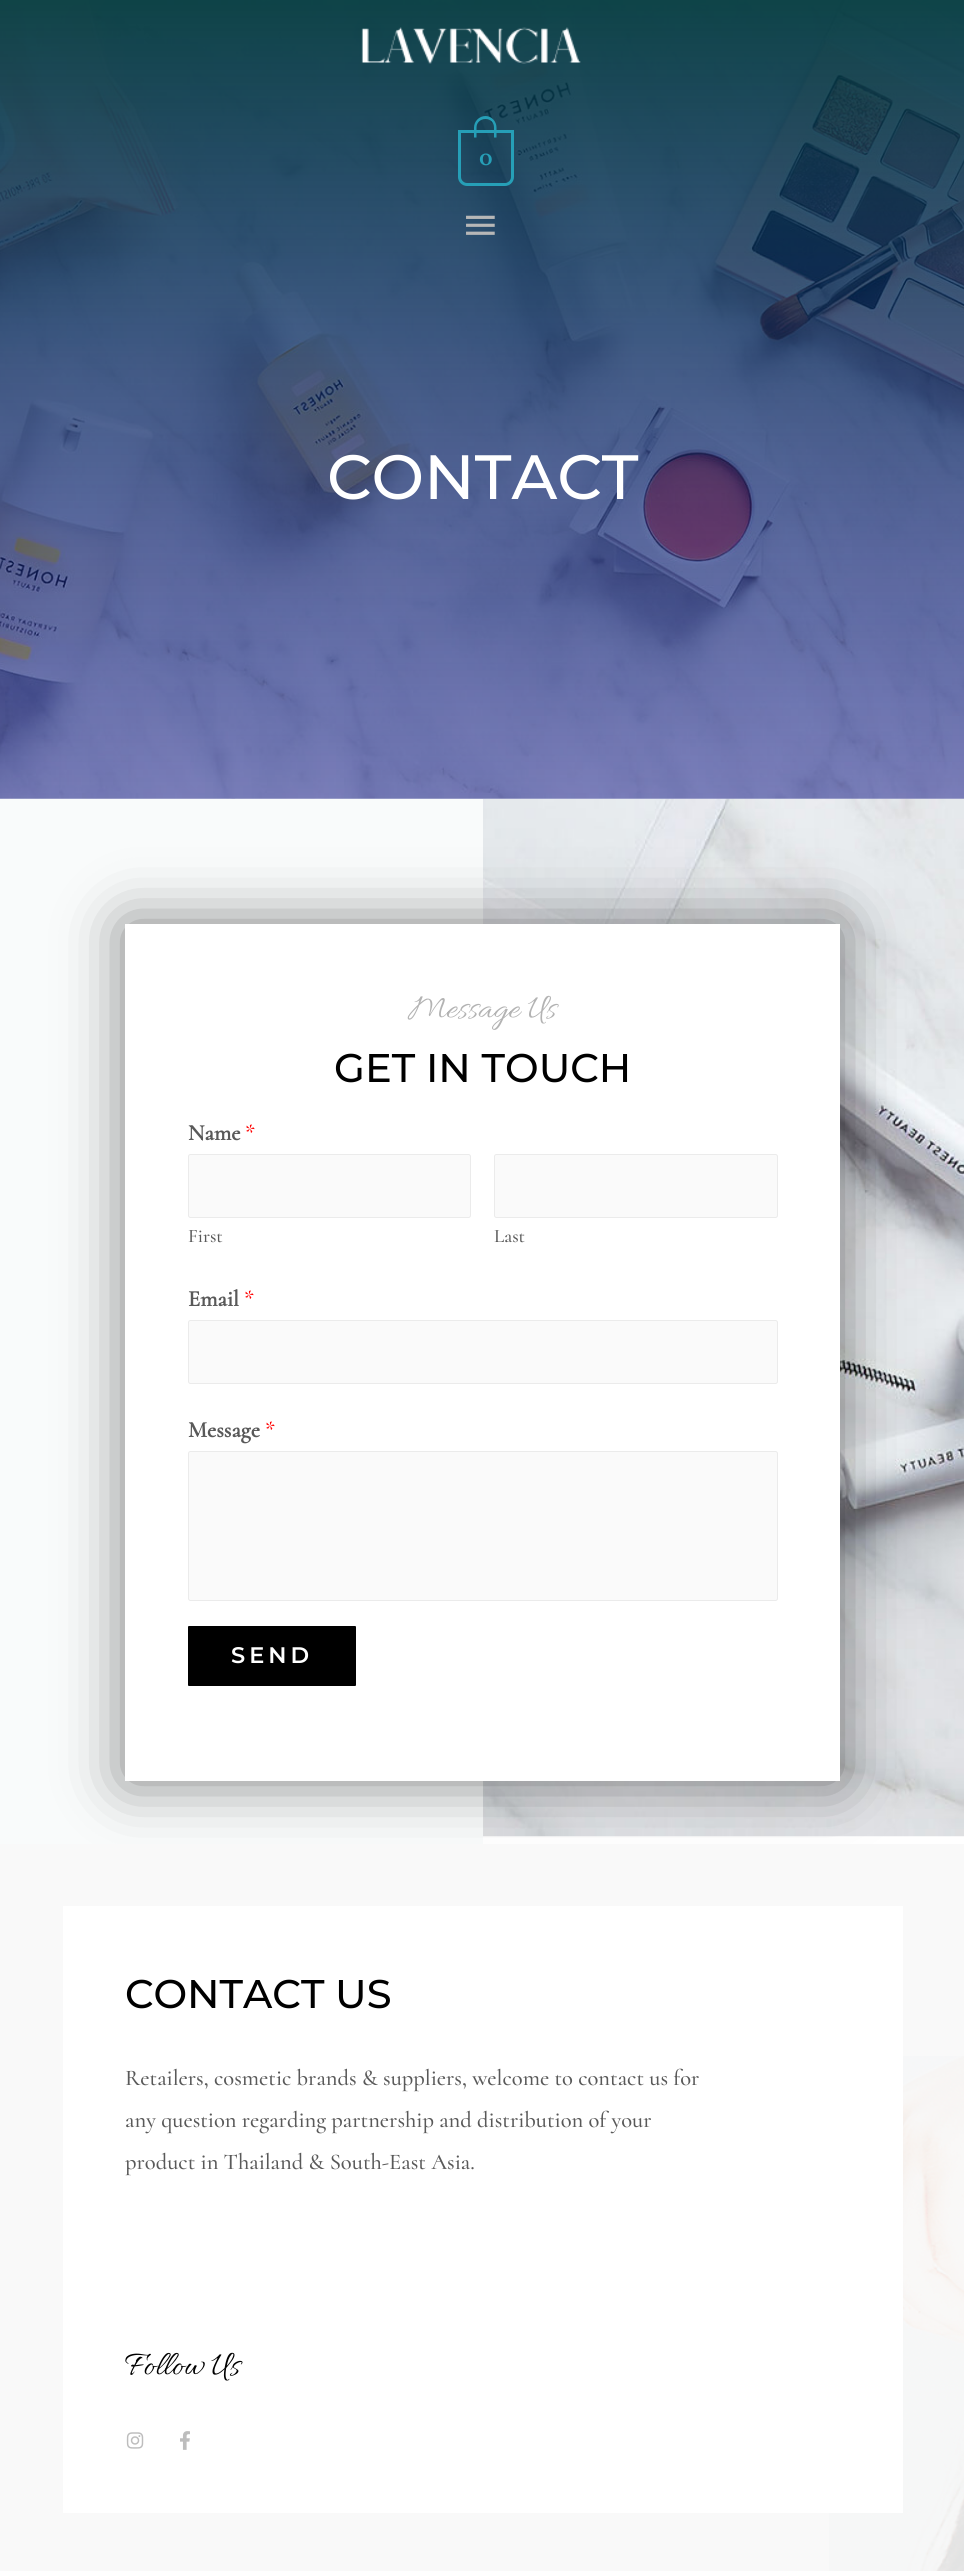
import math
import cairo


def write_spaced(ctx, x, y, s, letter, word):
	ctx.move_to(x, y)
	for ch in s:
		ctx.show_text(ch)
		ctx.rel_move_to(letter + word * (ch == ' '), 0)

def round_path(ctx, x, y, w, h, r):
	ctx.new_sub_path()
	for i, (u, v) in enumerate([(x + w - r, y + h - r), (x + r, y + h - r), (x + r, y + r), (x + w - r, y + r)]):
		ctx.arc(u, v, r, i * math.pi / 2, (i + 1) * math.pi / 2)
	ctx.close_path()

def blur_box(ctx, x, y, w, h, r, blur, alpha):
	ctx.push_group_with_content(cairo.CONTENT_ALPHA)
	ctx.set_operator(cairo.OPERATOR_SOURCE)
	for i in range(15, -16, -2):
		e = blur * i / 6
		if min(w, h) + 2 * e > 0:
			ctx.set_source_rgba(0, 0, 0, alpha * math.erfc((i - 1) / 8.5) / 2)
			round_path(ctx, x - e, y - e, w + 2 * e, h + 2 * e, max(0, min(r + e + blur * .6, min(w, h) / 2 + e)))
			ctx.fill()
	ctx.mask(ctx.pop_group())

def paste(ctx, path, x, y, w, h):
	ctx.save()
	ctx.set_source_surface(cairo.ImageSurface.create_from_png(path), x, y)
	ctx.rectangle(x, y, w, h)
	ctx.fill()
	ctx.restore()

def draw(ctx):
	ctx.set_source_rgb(1, 1, 1)
	ctx.paint()
	paste(ctx, 'media/3.png', 0, 0, 964, 799)
	gradient = cairo.LinearGradient(483, 799, 483, 0)
	gradient.add_color_stop_rgba(0, 0.027, 0.051, 0.529, 0.47)
	gradient.add_color_stop_rgba(1, 0.012, 0.231, 0.247, 0.95)
	ctx.set_source(gradient)
	ctx.rectangle(0, 0, 964, 799)
	ctx.fill()
	paste(ctx, 'media/1.png', 361, 27, 220, 37)
	ctx.new_path()
	ctx.move_to(459.5, 131.5)
	ctx.line_to(512.5, 131.5)
	ctx.line_to(512.5, 177)
	ctx.curve_to(512.5, 181, 509, 184.5, 505, 184.5)
	ctx.line_to(467, 184.5)
	ctx.curve_to(463, 184.5, 459.5, 181, 459.5, 177)
	ctx.close_path()
	ctx.set_source_rgb(0.149, 0.624, 0.718)
	ctx.set_line_width(3)
	ctx.stroke()
	ctx.set_fill_rule(cairo.FILL_RULE_EVEN_ODD)
	ctx.new_path()
	ctx.move_to(485.5, 116)
	ctx.curve_to(491.5, 116, 496.5, 121.5, 496.5, 127.5)
	ctx.line_to(496.5, 137.5)
	ctx.line_to(474, 137.5)
	ctx.line_to(474, 127.5)
	ctx.curve_to(474, 121.5, 479, 116, 485.5, 116)
	ctx.close_path()
	ctx.move_to(485.5, 119)
	ctx.curve_to(490.5, 119, 494, 122.5, 494, 127.5)
	ctx.line_to(494, 137.5)
	ctx.line_to(476.5, 137.5)
	ctx.line_to(476.5, 127.5)
	ctx.curve_to(476.5, 122.5, 480.5, 119, 485.5, 119)
	ctx.close_path()
	ctx.fill()
	ctx.select_font_face('Cormorant', cairo.FONT_SLANT_NORMAL, cairo.FONT_WEIGHT_BOLD)
	ctx.set_font_size(27)
	ctx.move_to(479, 165)
	ctx.show_text('0')
	paste(ctx, 'media/2.png', 466, 215, 29, 20)
	ctx.select_font_face('Montserrat Medium')
	ctx.set_font_size(62.5)
	ctx.set_source_rgb(1, 1, 1)
	ctx.move_to(327, 499)
	ctx.show_text('CONTACT')
	paste(ctx, 'media/4.png', 0, 798, 964, 1039)
	ctx.set_source_rgb(0.973, 0.984, 0.984)
	ctx.rectangle(0, 799, 483, 1045)
	ctx.fill()
	ctx.set_source_rgb(0, 0, 0)
	blur_box(ctx, 125, 924, 715, 857, 0, 31, 0.5)
	ctx.set_source_rgb(1, 1, 1)
	ctx.rectangle(125, 924, 715, 857)
	ctx.fill()
	ctx.select_font_face('Allura')
	ctx.set_font_size(35)
	ctx.set_source_rgb(0.702, 0.702, 0.702)
	ctx.move_to(408, 1017)
	ctx.show_text('Message Us')
	ctx.select_font_face('Montserrat Medium')
	ctx.set_font_size(40)
	ctx.set_source_rgb(0, 0, 0)
	ctx.move_to(334, 1082)
	ctx.show_text('GET IN TOUCH')
	ctx.select_font_face('Cormorant', cairo.FONT_SLANT_NORMAL, cairo.FONT_WEIGHT_BOLD)
	ctx.set_font_size(22.5)
	ctx.set_source_rgb(0.349, 0.349, 0.349)
	ctx.move_to(188, 1140)
	ctx.show_text('Name')
	ctx.select_font_face('Cormorant Light')
	ctx.set_source_rgb(1, 0, 0)
	ctx.move_to(245, 1140)
	ctx.show_text('*')
	ctx.set_source_rgb(0.98, 0.98, 0.98)
	round_path(ctx, 188.5, 1154.5, 282, 63, 2)
	ctx.fill_preserve()
	ctx.set_source_rgb(0.918, 0.918, 0.918)
	ctx.set_line_width(1)
	ctx.stroke()
	ctx.set_font_size(19)
	ctx.set_source_rgb(0.349, 0.349, 0.349)
	ctx.move_to(188, 1242)
	ctx.show_text('First')
	ctx.set_source_rgb(0.98, 0.98, 0.98)
	round_path(ctx, 494.5, 1154.5, 283, 63, 2)
	ctx.fill_preserve()
	ctx.set_source_rgb(0.918, 0.918, 0.918)
	ctx.stroke()
	ctx.set_source_rgb(0.349, 0.349, 0.349)
	ctx.move_to(494, 1242)
	ctx.show_text('Last')
	ctx.select_font_face('Cormorant', cairo.FONT_SLANT_NORMAL, cairo.FONT_WEIGHT_BOLD)
	ctx.set_font_size(22.5)
	ctx.move_to(188, 1306)
	ctx.show_text('Email')
	ctx.select_font_face('Cormorant Light')
	ctx.set_source_rgb(1, 0, 0)
	ctx.move_to(244, 1306)
	ctx.show_text('*')
	ctx.set_source_rgb(0.98, 0.98, 0.98)
	round_path(ctx, 188.5, 1320.5, 589, 63, 2)
	ctx.fill_preserve()
	ctx.set_source_rgb(0.918, 0.918, 0.918)
	ctx.stroke()
	ctx.select_font_face('Cormorant', cairo.FONT_SLANT_NORMAL, cairo.FONT_WEIGHT_BOLD)
	ctx.set_source_rgb(0.349, 0.349, 0.349)
	ctx.move_to(188, 1437)
	ctx.show_text('Message')
	ctx.select_font_face('Cormorant Light')
	ctx.set_source_rgb(1, 0, 0)
	ctx.move_to(265, 1437)
	ctx.show_text('*')
	ctx.set_source_rgb(0.98, 0.98, 0.98)
	round_path(ctx, 188.5, 1451.5, 589, 149, 2)
	ctx.fill_preserve()
	ctx.set_source_rgb(0.918, 0.918, 0.918)
	ctx.stroke()
	ctx.set_source_rgb(0, 0, 0)
	round_path(ctx, 188, 1626, 168, 60, 1)
	ctx.fill()
	ctx.select_font_face('Montserrat SemiBold')
	ctx.set_source_rgb(1, 1, 1)
	write_spaced(ctx, 231, 1663, 'SEND', 4, 0)
	ctx.set_source_rgb(0.973, 0.973, 0.973)
	ctx.rectangle(0, 1844, 964, 727)
	ctx.fill()
	paste(ctx, 'media/7.png', 829, 2056, 135, 515)
	ctx.set_source_rgb(1, 1, 1)
	ctx.rectangle(63, 1906, 840, 607)
	ctx.fill()
	ctx.select_font_face('Montserrat Medium')
	ctx.set_font_size(40)
	ctx.set_source_rgb(0, 0, 0)
	ctx.move_to(125, 2008)
	ctx.show_text('CONTACT US')
	ctx.select_font_face('Cormorant Light')
	ctx.set_font_size(22.5)
	ctx.set_source_rgb(0.349, 0.349, 0.349)
	for x, y, s in [
		(125, 2085, 'Retailers, cosmetic brands & suppliers, welcome to contact us for'),
		(125, 2127, 'any question regarding partnership and distribution of your'),
		(125, 2169, 'product in Thailand & South-East Asia.'),
	]:
		ctx.move_to(x, y)
		ctx.show_text(s)
	ctx.select_font_face('Allura')
	ctx.set_font_size(35)
	ctx.set_source_rgb(0, 0, 0)
	ctx.move_to(125, 2374)
	ctx.show_text('Follow Us')
	paste(ctx, 'media/5.png', 126, 2432, 18, 17)
	paste(ctx, 'media/6.png', 180, 2431, 10, 19)


surface = cairo.ImageSurface(cairo.FORMAT_RGB24, 964, 2571)
ctx = cairo.Context(surface)
options = cairo.FontOptions()
options.set_hint_metrics(cairo.HINT_METRICS_OFF)
options.set_hint_style(cairo.HINT_STYLE_NONE)
ctx.set_font_options(options)
ctx.set_miter_limit(4)
draw(ctx)
surface.write_to_png('image.png')
